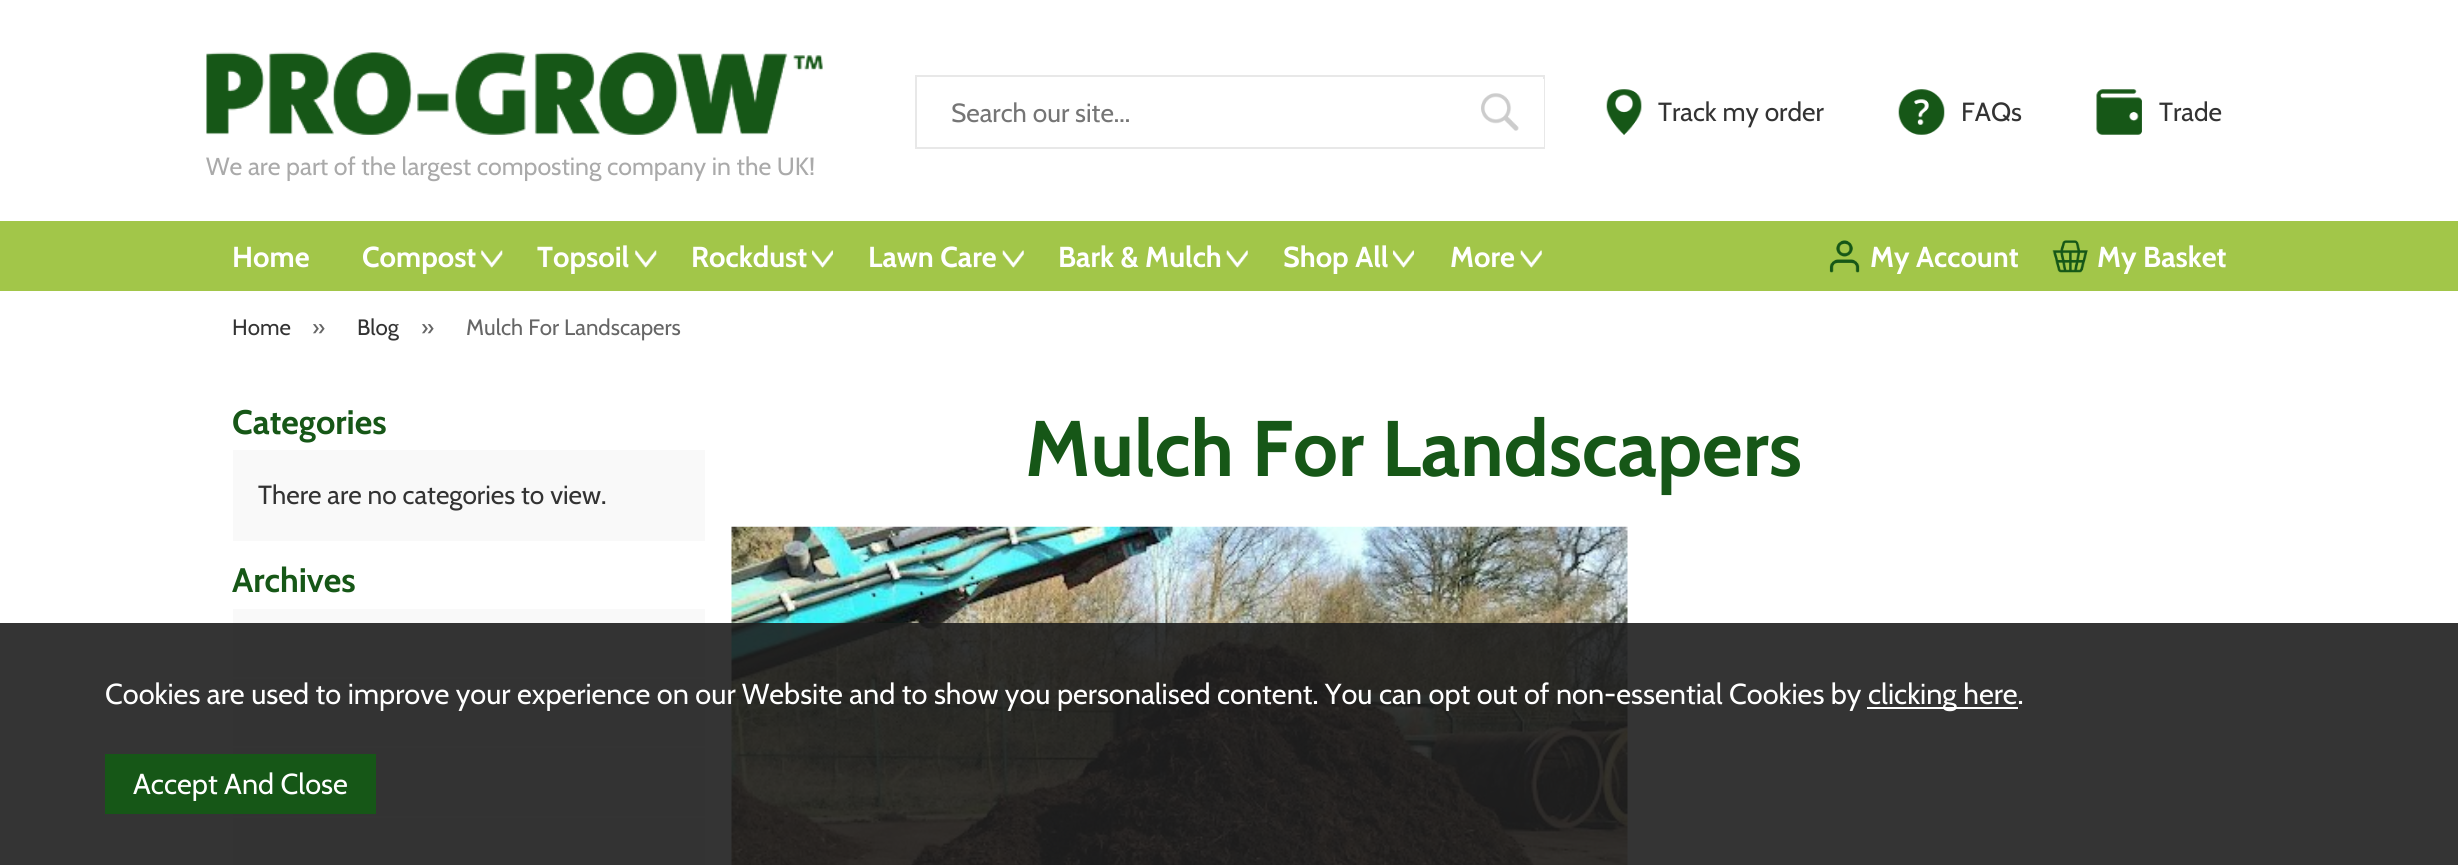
import math
import cairo


def paste(ctx, path, x, y, w, h):
	ctx.save()
	ctx.set_source_surface(cairo.ImageSurface.create_from_png(path), x, y)
	ctx.rectangle(x, y, w, h)
	ctx.fill()
	ctx.restore()

def draw(ctx):
	ctx.set_source_rgb(1, 1, 1)
	ctx.paint()
	ctx.rectangle(916, 76, 628, 72)
	ctx.set_source_rgb(0.91, 0.91, 0.91)
	ctx.stroke()
	ctx.set_source_rgb(1, 1, 1)
	ctx.rectangle(1543, 79, 1, 68)
	ctx.fill()
	ctx.select_font_face('Cabin')
	ctx.set_font_size(26.25)
	ctx.set_source_rgb(0.459, 0.459, 0.459)
	ctx.move_to(951, 122)
	ctx.show_text('Search our site...')
	paste(ctx, 'media/1.png', 1481, 93, 38, 38)
	paste(ctx, 'media/2.png', 1606, 89, 36, 46)
	ctx.set_source_rgb(0.2, 0.2, 0.2)
	ctx.move_to(1658, 121)
	ctx.show_text('Track my order')
	paste(ctx, 'media/3.png', 1898, 89, 47, 46)
	ctx.move_to(1961, 121)
	ctx.show_text('FAQs')
	paste(ctx, 'media/4.png', 2096, 89, 46, 46)
	ctx.move_to(2159, 121)
	ctx.show_text('Trade')
	paste(ctx, 'media/5.png', 206, 52, 617, 83)
	ctx.set_font_size(24.9)
	ctx.set_source_rgb(0.667, 0.667, 0.667)
	ctx.move_to(206, 175)
	ctx.show_text('We are part of the largest composting company in the UK!')
	ctx.set_source_rgb(0.635, 0.776, 0.286)
	ctx.rectangle(0, 221, 2458, 70)
	ctx.fill()
	ctx.select_font_face('Cabin', cairo.FONT_SLANT_NORMAL, cairo.FONT_WEIGHT_BOLD)
	ctx.set_font_size(28.88)
	ctx.set_source_rgb(1, 1, 1)
	ctx.move_to(232, 267)
	ctx.show_text('Home')
	paste(ctx, 'media/6.png', 481, 250, 22, 18)
	ctx.move_to(362, 267)
	ctx.show_text('Compost')
	paste(ctx, 'media/6.png', 635, 250, 22, 18)
	ctx.move_to(537, 267)
	ctx.show_text('Topsoil')
	paste(ctx, 'media/7.png', 812, 250, 21, 18)
	ctx.move_to(691, 267)
	ctx.show_text('Rockdust')
	paste(ctx, 'media/8.png', 1002, 250, 22, 18)
	ctx.move_to(868, 267)
	ctx.show_text('Lawn Care')
	paste(ctx, 'media/8.png', 1226, 250, 22, 18)
	ctx.move_to(1058, 267)
	ctx.show_text('Bark & Mulch')
	paste(ctx, 'media/7.png', 1393, 250, 21, 18)
	ctx.move_to(1283, 267)
	ctx.show_text('Shop All')
	paste(ctx, 'media/9.png', 1520, 250, 22, 18)
	ctx.move_to(1450, 267)
	ctx.show_text('More')
	paste(ctx, 'media/10.png', 1829, 240, 31, 33)
	ctx.move_to(1870, 267)
	ctx.show_text('My Account')
	paste(ctx, 'media/11.png', 2052, 240, 36, 33)
	ctx.move_to(2097, 267)
	ctx.show_text('My Basket')
	ctx.select_font_face('Cabin')
	ctx.set_font_size(22.25)
	ctx.set_source_rgb(0.2, 0.2, 0.2)
	ctx.move_to(232, 335)
	ctx.show_text('Home')
	ctx.set_source_rgb(0.4, 0.4, 0.4)
	ctx.move_to(312, 335)
	ctx.show_text('»')
	ctx.set_source_rgb(0.2, 0.2, 0.2)
	ctx.move_to(357, 335)
	ctx.show_text('Blog')
	ctx.set_source_rgb(0.4, 0.4, 0.4)
	ctx.move_to(421, 335)
	ctx.show_text('»')
	ctx.move_to(466, 335)
	ctx.show_text('Mulch For Landscapers')
	ctx.select_font_face('Cabin', cairo.FONT_SLANT_NORMAL, cairo.FONT_WEIGHT_BOLD)
	ctx.set_font_size(34)
	ctx.set_source_rgb(0.086, 0.341, 0.09)
	ctx.move_to(232, 434)
	ctx.show_text('Categories')
	ctx.set_source_rgb(0.976, 0.976, 0.976)
	ctx.rectangle(233, 450, 472, 91)
	ctx.fill()
	ctx.select_font_face('Cabin')
	ctx.set_font_size(26.25)
	ctx.set_source_rgb(0.2, 0.2, 0.2)
	ctx.move_to(258, 504)
	ctx.show_text('There are no categories to view.')
	ctx.select_font_face('Cabin', cairo.FONT_SLANT_NORMAL, cairo.FONT_WEIGHT_BOLD)
	ctx.set_font_size(34)
	ctx.set_source_rgb(0.086, 0.341, 0.09)
	ctx.move_to(232, 592)
	ctx.show_text('Archives')
	ctx.set_source_rgb(0.976, 0.976, 0.976)
	ctx.rectangle(233, 609, 472, 256)
	ctx.fill()
	ctx.set_source_rgb(1, 1, 1)
	ctx.rectangle(233, 677, 472, 2)
	ctx.rectangle(233, 746, 472, 2)
	ctx.rectangle(233, 816, 472, 2)
	ctx.fill()
	ctx.set_font_size(78.75)
	ctx.set_source_rgb(0.086, 0.341, 0.09)
	ctx.move_to(1025, 476)
	ctx.show_text('Mulch For Landscapers')
	paste(ctx, 'media/12.png', 731, 526, 897, 339)
	ctx.set_source_rgba(0.118, 0.118, 0.118, 0.9)
	ctx.rectangle(0, 623, 2458, 242)
	ctx.fill()
	ctx.select_font_face('Cabin')
	ctx.set_font_size(28.88)
	ctx.set_source_rgb(1, 1, 1)
	ctx.move_to(105, 704)
	ctx.show_text('Cookies are used to improve your experience on our Website and to show you personalised content. You can opt out of non-essential Cookies by')
	ctx.rectangle(1867, 707, 151, 2)
	ctx.fill()
	ctx.move_to(1868, 704)
	ctx.show_text('clicking here.')
	ctx.set_source_rgb(0.086, 0.341, 0.09)
	ctx.rectangle(105, 754, 271, 60)
	ctx.fill()
	ctx.set_source_rgb(1, 1, 1)
	ctx.move_to(133, 794)
	ctx.show_text('Accept And Close')


surface = cairo.ImageSurface(cairo.FORMAT_RGB24, 2458, 865)
ctx = cairo.Context(surface)
options = cairo.FontOptions()
options.set_hint_metrics(cairo.HINT_METRICS_OFF)
options.set_hint_style(cairo.HINT_STYLE_NONE)
ctx.set_font_options(options)
ctx.set_miter_limit(4)
draw(ctx)
surface.write_to_png('image.png')
